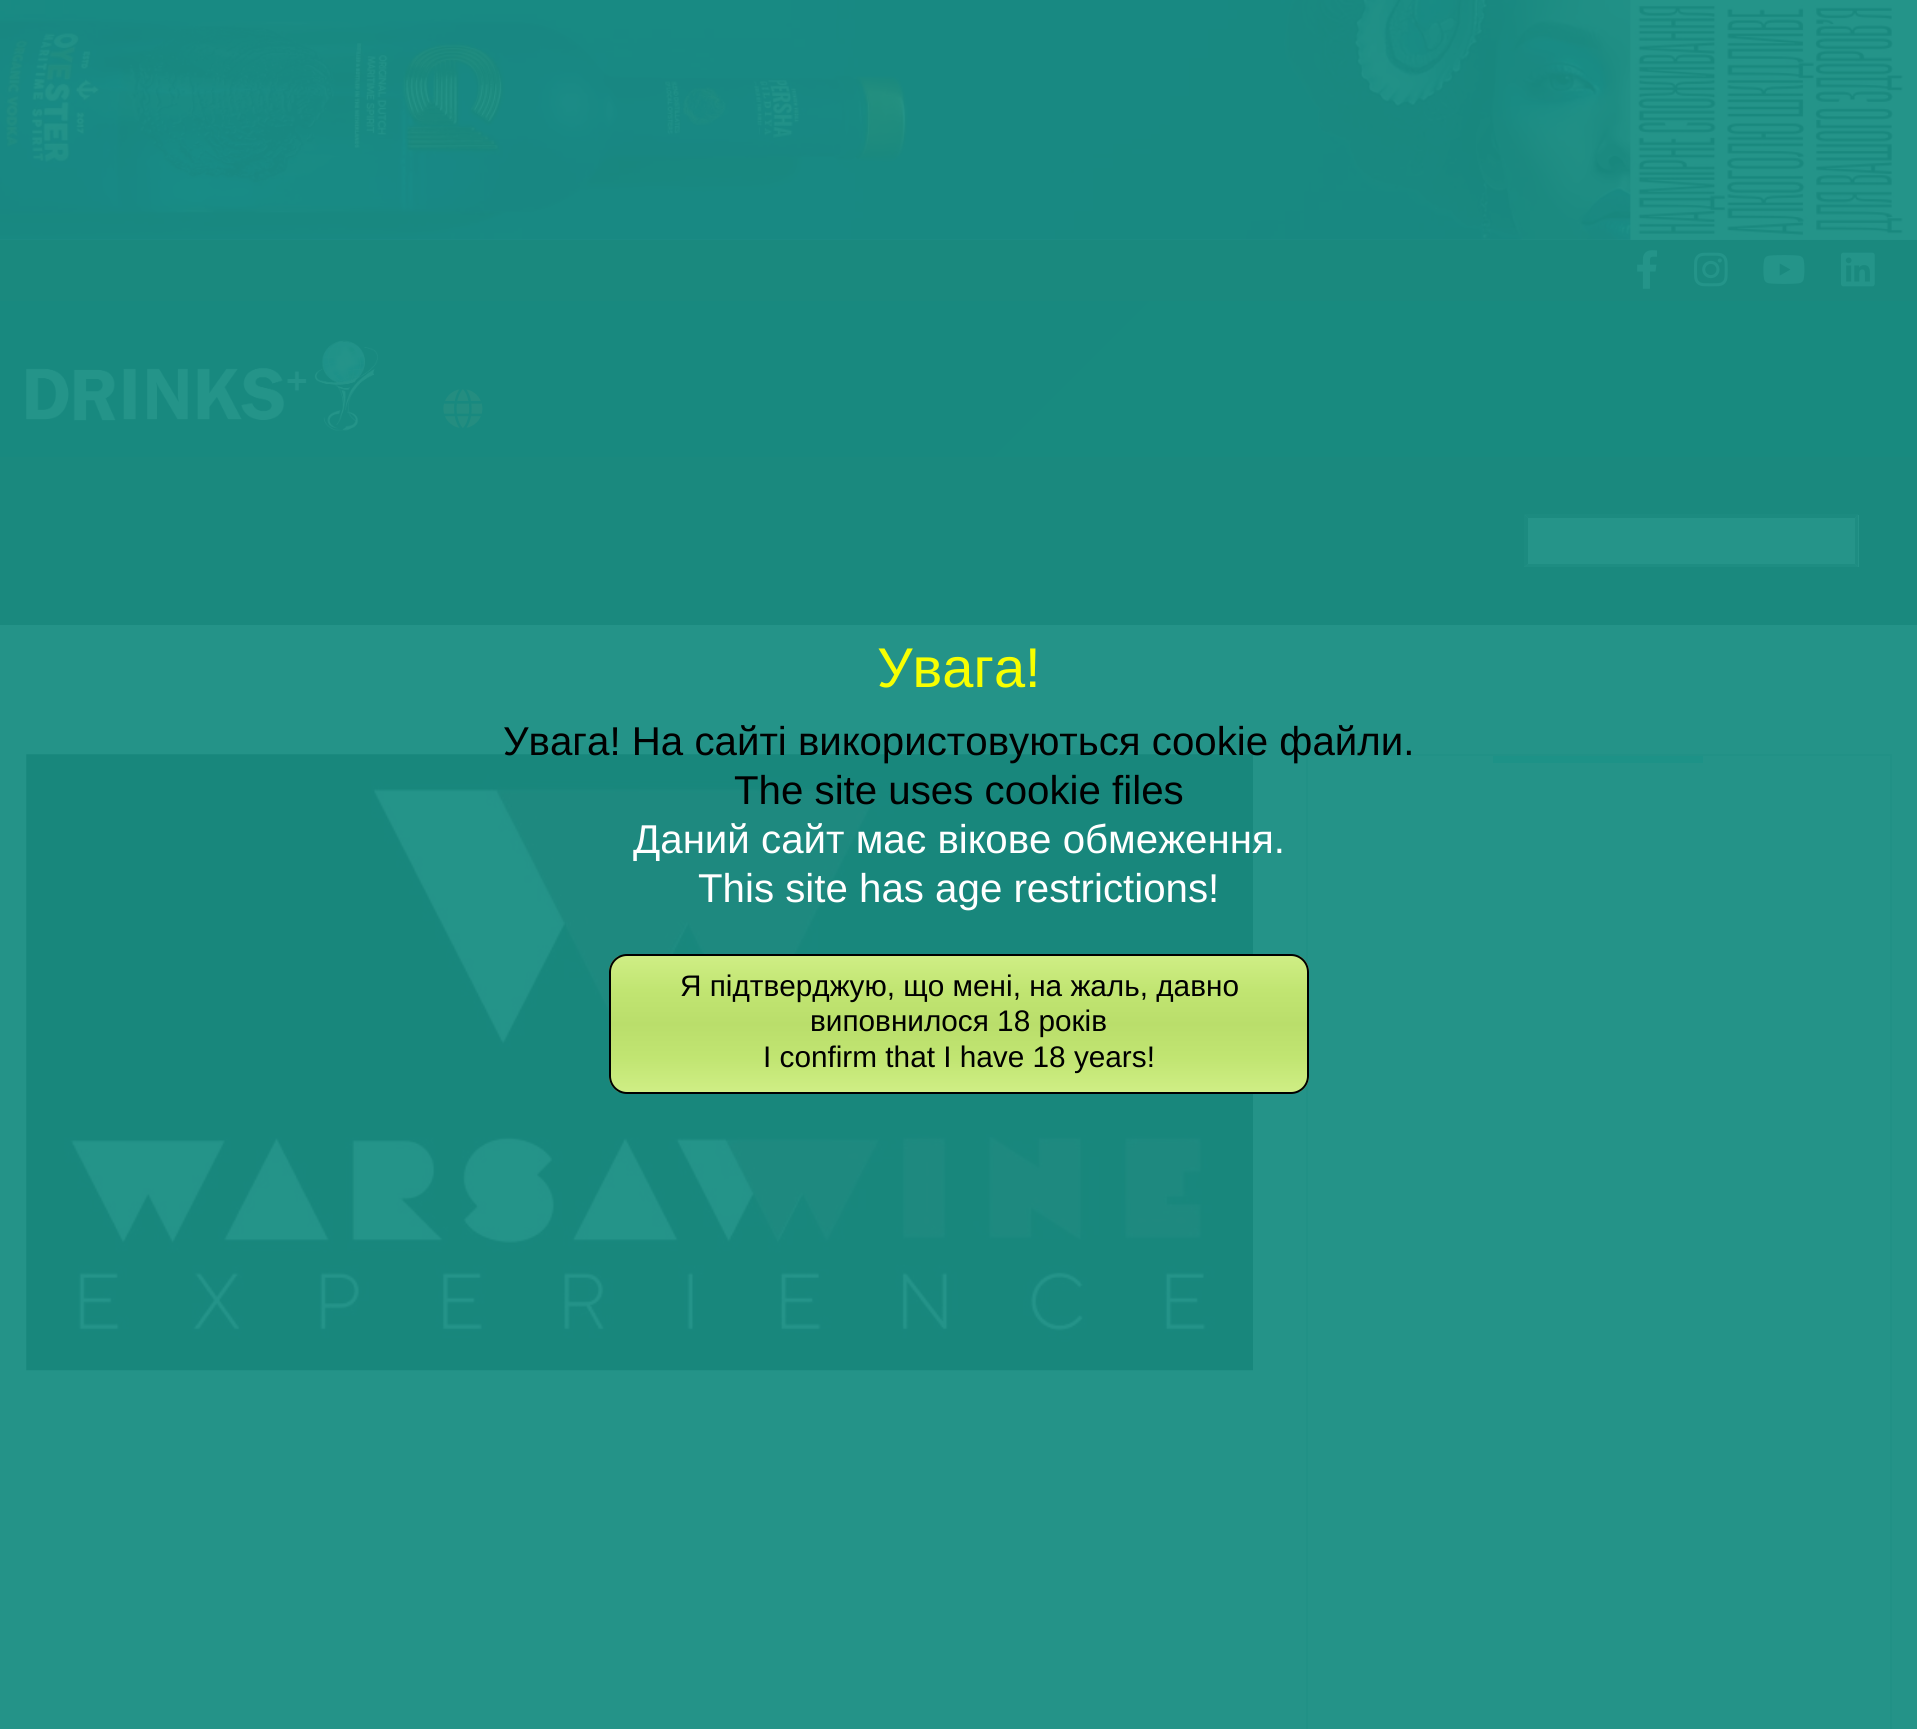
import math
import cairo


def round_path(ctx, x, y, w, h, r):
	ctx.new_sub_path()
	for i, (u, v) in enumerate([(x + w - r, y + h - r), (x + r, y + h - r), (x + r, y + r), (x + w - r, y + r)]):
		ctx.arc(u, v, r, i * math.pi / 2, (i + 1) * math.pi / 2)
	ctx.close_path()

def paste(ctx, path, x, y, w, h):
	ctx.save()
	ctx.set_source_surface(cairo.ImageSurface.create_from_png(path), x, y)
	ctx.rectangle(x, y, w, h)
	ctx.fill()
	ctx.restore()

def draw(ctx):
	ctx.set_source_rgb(0.141, 0.576, 0.533)
	ctx.paint()
	paste(ctx, 'media/1.png', 0, 0, 1917, 240)
	ctx.set_source_rgb(0.102, 0.537, 0.494)
	ctx.rectangle(0, 240, 1917, 61)
	ctx.fill()
	paste(ctx, 'media/2.png', 1637, 250, 20, 39)
	paste(ctx, 'media/3.png', 1694, 252, 34, 35)
	paste(ctx, 'media/4.png', 1763, 255, 42, 29)
	paste(ctx, 'media/5.png', 1841, 252, 34, 35)
	gradient = cairo.LinearGradient(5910, 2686, 1762, -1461)
	gradient.add_color_stop_rgba(0, 0.094, 0.553, 0.51, 1)
	gradient.add_color_stop_rgba(0.5, 0.094, 0.545, 0.502, 1)
	gradient.add_color_stop_rgba(1, 0.094, 0.537, 0.498, 1)
	ctx.set_source(gradient)
	ctx.rectangle(0, 301, 1917, 156)
	ctx.fill()
	paste(ctx, 'media/6.png', 26, 340, 352, 91)
	paste(ctx, 'media/7.png', 443, 389, 40, 40)
	ctx.set_source_rgb(0.102, 0.537, 0.494)
	ctx.rectangle(0, 457, 1917, 168)
	ctx.fill()
	ctx.set_source_rgb(0.145, 0.58, 0.537)
	ctx.rectangle(1524, 515, 335, 52)
	ctx.fill()
	ctx.set_source_rgb(0.11, 0.545, 0.502)
	ctx.new_path()
	ctx.move_to(1524, 514)
	ctx.line_to(1858, 514)
	ctx.line_to(1855, 518)
	ctx.line_to(1528, 518)
	ctx.close_path()
	ctx.fill()
	ctx.set_source_rgb(0.118, 0.553, 0.51)
	ctx.new_path()
	ctx.move_to(1858, 514)
	ctx.line_to(1858, 567)
	ctx.line_to(1855, 564)
	ctx.line_to(1855, 518)
	ctx.close_path()
	ctx.fill()
	ctx.new_path()
	ctx.move_to(1858, 567)
	ctx.line_to(1524, 567)
	ctx.line_to(1528, 564)
	ctx.line_to(1855, 564)
	ctx.close_path()
	ctx.fill()
	ctx.set_source_rgb(0.11, 0.545, 0.502)
	ctx.new_path()
	ctx.move_to(1524, 567)
	ctx.line_to(1524, 514)
	ctx.line_to(1528, 518)
	ctx.line_to(1528, 564)
	ctx.close_path()
	ctx.fill()
	ctx.select_font_face('Liberation Sans')
	ctx.set_font_size(56)
	ctx.set_source_rgb(0.965, 1, 0)
	ctx.move_to(877, 687)
	ctx.show_text('Увага!')
	paste(ctx, 'media/8.png', 26, 754, 1227, 617)
	ctx.rectangle(1307, 755, 584, 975)
	ctx.set_source_rgb(0.129, 0.569, 0.525)
	ctx.stroke()
	ctx.set_font_size(40.25)
	ctx.set_source_rgb(0, 0, 0)
	ctx.move_to(503, 755)
	ctx.show_text('Увага! На сайті використовуються cookie файли.')
	ctx.move_to(734, 804)
	ctx.show_text('The site uses cookie files')
	ctx.set_source_rgb(1, 1, 1)
	ctx.move_to(633, 853)
	ctx.show_text('Даний сайт має вікове обмеження.')
	ctx.move_to(698, 902)
	ctx.show_text('This site has age restrictions!')
	ctx.save()
	round_path(ctx, 609, 954, 700, 140, 18)
	ctx.clip()
	gradient = cairo.LinearGradient(959, 956, 959, 1092)
	gradient.add_color_stop_rgba(0, 0.812, 0.933, 0.522, 1)
	gradient.add_color_stop_rgba(0.25, 0.757, 0.898, 0.447, 1)
	gradient.add_color_stop_rgba(0.5, 0.729, 0.871, 0.42, 1)
	gradient.add_color_stop_rgba(0.75, 0.757, 0.898, 0.447, 1)
	gradient.add_color_stop_rgba(1, 0.812, 0.933, 0.522, 1)
	ctx.set_source(gradient)
	ctx.rectangle(609, 956, 700, 136)
	ctx.fill()
	ctx.restore()
	round_path(ctx, 610, 955, 698, 138, 17)
	ctx.set_source_rgb(0, 0, 0)
	ctx.stroke()
	ctx.set_font_size(29.75)
	for x, y, s in [
		(680, 996, 'Я підтверджую, що мені, на жаль, давно'),
		(810, 1031, 'виповнилося 18 років'),
		(763, 1067, 'I confirm that I have 18 years!'),
	]:
		ctx.move_to(x, y)
		ctx.show_text(s)
	ctx.set_source_rgb(0.114, 0.573, 0.529)
	ctx.rectangle(1493, 756, 210, 7)
	ctx.fill()


surface = cairo.ImageSurface(cairo.FORMAT_RGB24, 1917, 1729)
ctx = cairo.Context(surface)
options = cairo.FontOptions()
options.set_hint_metrics(cairo.HINT_METRICS_OFF)
options.set_hint_style(cairo.HINT_STYLE_NONE)
ctx.set_font_options(options)
ctx.set_miter_limit(4)
draw(ctx)
surface.write_to_png('image.png')
